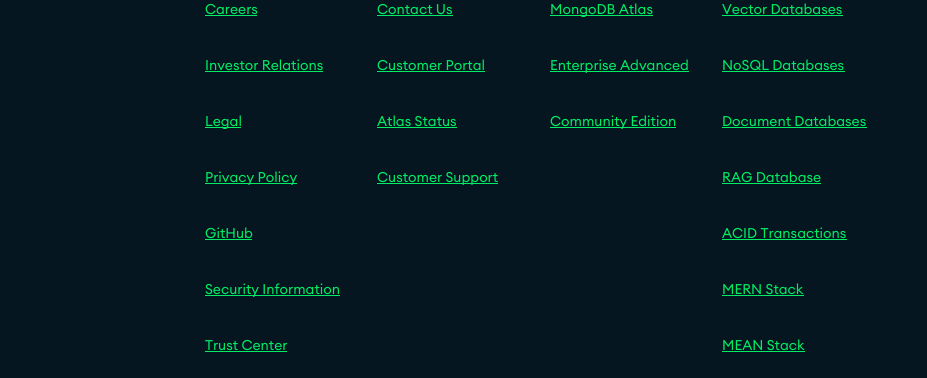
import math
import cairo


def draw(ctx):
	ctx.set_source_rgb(0.024, 0.086, 0.129)
	ctx.paint()
	ctx.select_font_face('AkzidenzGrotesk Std')
	ctx.set_font_size(14)
	ctx.set_source_rgb(0, 0.929, 0.392)
	ctx.move_to(205, 14)
	ctx.show_text('Careers')
	ctx.rectangle(205, 15, 52, 1)
	ctx.fill()
	ctx.move_to(205, 70)
	ctx.show_text('Investor Relations')
	ctx.rectangle(205, 71, 118, 1)
	ctx.fill()
	ctx.rectangle(205, 127, 36, 1)
	ctx.fill()
	ctx.move_to(205, 126)
	ctx.show_text('Legal')
	ctx.rectangle(205, 183, 92, 1)
	ctx.fill()
	ctx.move_to(205, 182)
	ctx.show_text('Privacy Policy')
	ctx.move_to(205, 238)
	ctx.show_text('GitHub')
	ctx.rectangle(205, 239, 47, 1)
	ctx.fill()
	ctx.rectangle(205, 295, 135, 1)
	ctx.fill()
	ctx.move_to(205, 294)
	ctx.show_text('Security Information')
	ctx.move_to(205, 350)
	ctx.show_text('Trust Center')
	ctx.rectangle(205, 351, 82, 1)
	ctx.fill()
	ctx.move_to(377, 14)
	ctx.show_text('Contact Us')
	ctx.rectangle(377, 15, 76, 1)
	ctx.fill()
	ctx.move_to(377, 70)
	ctx.show_text('Customer Portal')
	ctx.rectangle(377, 71, 108, 1)
	ctx.fill()
	ctx.move_to(377, 126)
	ctx.show_text('Atlas Status')
	ctx.rectangle(377, 127, 80, 1)
	ctx.fill()
	ctx.rectangle(377, 183, 121, 1)
	ctx.fill()
	ctx.move_to(377, 182)
	ctx.show_text('Customer Support')
	ctx.rectangle(550, 15, 103, 1)
	ctx.fill()
	ctx.move_to(550, 14)
	ctx.show_text('MongoDB Atlas')
	ctx.rectangle(550, 71, 139, 1)
	ctx.fill()
	ctx.move_to(550, 70)
	ctx.show_text('Enterprise Advanced')
	ctx.rectangle(550, 127, 126, 1)
	ctx.fill()
	ctx.move_to(550, 126)
	ctx.show_text('Community Edition')
	ctx.move_to(722, 14)
	ctx.show_text('Vector Databases')
	ctx.rectangle(722, 15, 121, 1)
	ctx.fill()
	ctx.move_to(722, 70)
	ctx.show_text('NoSQL Databases')
	ctx.rectangle(722, 71, 123, 1)
	ctx.fill()
	ctx.move_to(722, 126)
	ctx.show_text('Document Databases')
	ctx.rectangle(722, 127, 145, 1)
	ctx.fill()
	ctx.move_to(722, 182)
	ctx.show_text('RAG Database')
	ctx.rectangle(722, 183, 99, 1)
	ctx.fill()
	ctx.move_to(722, 238)
	ctx.show_text('ACID Transactions')
	ctx.rectangle(722, 239, 125, 1)
	ctx.fill()
	ctx.move_to(722, 294)
	ctx.show_text('MERN Stack')
	ctx.rectangle(722, 295, 82, 1)
	ctx.fill()
	ctx.move_to(722, 350)
	ctx.show_text('MEAN Stack')
	ctx.rectangle(722, 351, 83, 1)
	ctx.fill()


surface = cairo.ImageSurface(cairo.FORMAT_RGB24, 927, 378)
ctx = cairo.Context(surface)
options = cairo.FontOptions()
options.set_hint_metrics(cairo.HINT_METRICS_OFF)
options.set_hint_style(cairo.HINT_STYLE_NONE)
ctx.set_font_options(options)
ctx.set_miter_limit(4)
draw(ctx)
surface.write_to_png('image.png')
